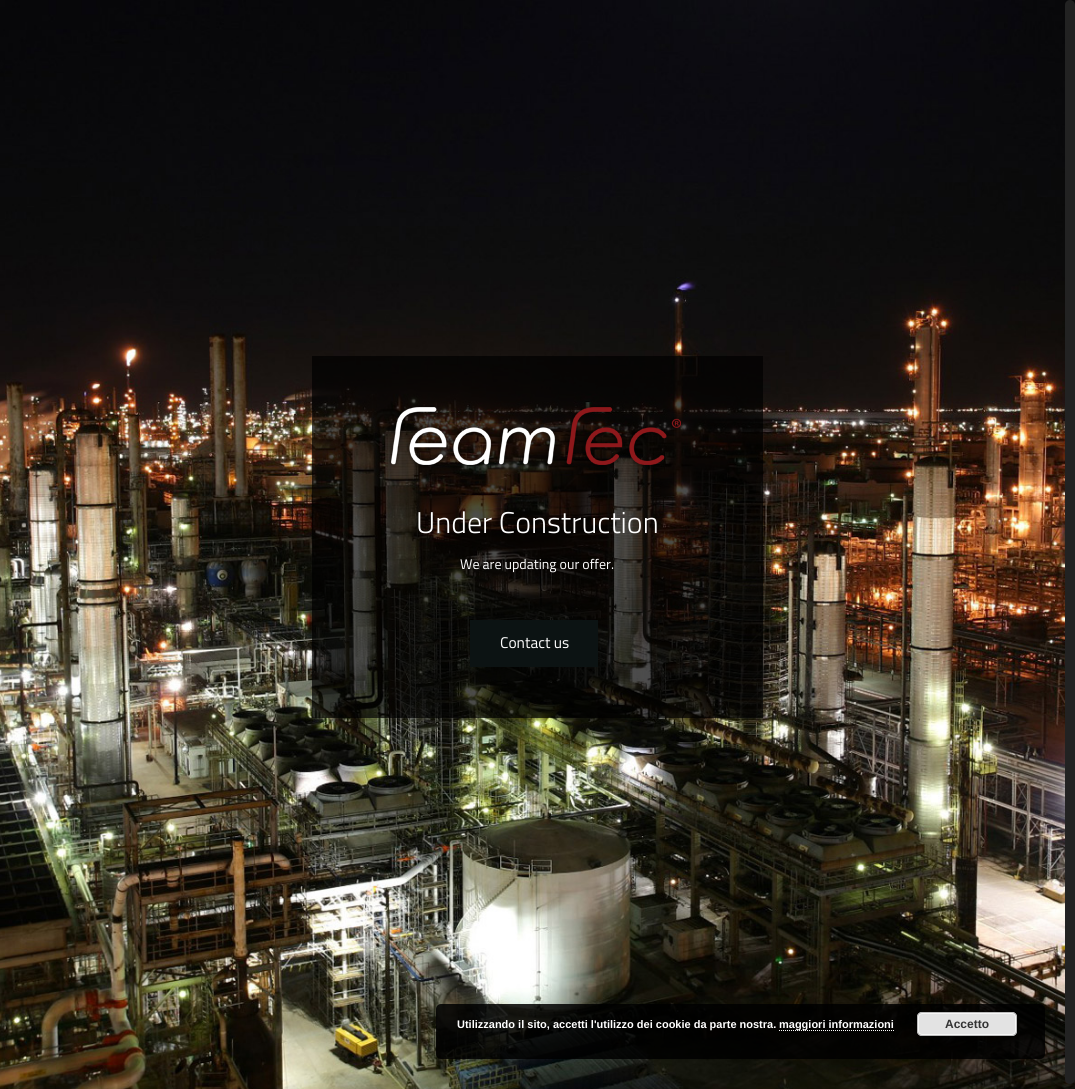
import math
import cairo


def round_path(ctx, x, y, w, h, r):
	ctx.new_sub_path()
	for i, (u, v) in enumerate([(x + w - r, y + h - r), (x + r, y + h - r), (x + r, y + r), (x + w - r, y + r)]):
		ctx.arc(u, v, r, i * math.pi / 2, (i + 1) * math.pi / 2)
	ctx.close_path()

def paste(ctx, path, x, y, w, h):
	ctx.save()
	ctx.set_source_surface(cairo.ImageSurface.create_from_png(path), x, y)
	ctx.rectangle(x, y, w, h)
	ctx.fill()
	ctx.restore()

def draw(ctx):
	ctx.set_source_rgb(1, 1, 1)
	ctx.paint()
	paste(ctx, 'media/1.png', 0, 0, 1075, 1089)
	ctx.set_source_rgba(0, 0, 0, 0.7)
	ctx.rectangle(312, 356, 451, 362)
	ctx.fill()
	paste(ctx, 'media/2.png', 389, 405, 293, 63)
	ctx.select_font_face('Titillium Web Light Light')
	ctx.set_font_size(30)
	ctx.set_source_rgb(1, 1, 1)
	ctx.move_to(416, 533)
	ctx.show_text('Under Construction')
	ctx.select_font_face('Titillium Web')
	ctx.set_font_size(14)
	ctx.move_to(460, 569)
	ctx.show_text('We are updating our offer.')
	ctx.set_source_rgb(0.047, 0.075, 0.078)
	ctx.rectangle(470, 620, 128, 47)
	ctx.fill()
	ctx.set_font_size(15.5)
	ctx.set_source_rgb(1, 1, 1)
	ctx.move_to(500, 648)
	ctx.show_text('Contact us')
	ctx.set_source_rgb(0.133, 0.133, 0.133)
	round_path(ctx, 1065, 0, 10, 1084, 5)
	ctx.fill()
	ctx.set_source_rgba(0, 0, 0, 0.85)
	round_path(ctx, 436, 1004, 609, 55, 5)
	ctx.fill()
	ctx.select_font_face('Liberation Sans', cairo.FONT_SLANT_NORMAL, cairo.FONT_WEIGHT_BOLD)
	ctx.set_font_size(11)
	ctx.set_source_rgb(1, 1, 1)
	ctx.move_to(457, 1028)
	ctx.show_text('Utilizzando il sito, accetti l\'utilizzo dei cookie da parte nostra.')
	ctx.new_path()
	ctx.move_to(779, 1030.5)
	ctx.line_to(894, 1030.5)
	ctx.set_line_width(1)
	ctx.set_dash([1, 1])
	ctx.stroke()
	ctx.move_to(779, 1028)
	ctx.show_text('maggiori informazioni')
	ctx.set_source_rgb(0.89, 0.89, 0.89)
	round_path(ctx, 917, 1012, 100, 24, 5)
	ctx.fill()
	round_path(ctx, 918.5, 1013.5, 97, 21, 3.5)
	ctx.set_source_rgb(0.965, 0.965, 0.965)
	ctx.set_dash([])
	ctx.stroke()
	round_path(ctx, 917.5, 1012.5, 99, 23, 4.5)
	ctx.set_source_rgb(0.733, 0.733, 0.733)
	ctx.stroke()
	ctx.set_font_size(12)
	ctx.set_source_rgb(0.2, 0.2, 0.2)
	ctx.move_to(945, 1028)
	ctx.show_text('Accetto')


surface = cairo.ImageSurface(cairo.FORMAT_RGB24, 1075, 1089)
ctx = cairo.Context(surface)
options = cairo.FontOptions()
options.set_hint_metrics(cairo.HINT_METRICS_OFF)
options.set_hint_style(cairo.HINT_STYLE_NONE)
ctx.set_font_options(options)
ctx.set_miter_limit(4)
draw(ctx)
surface.write_to_png('image.png')
